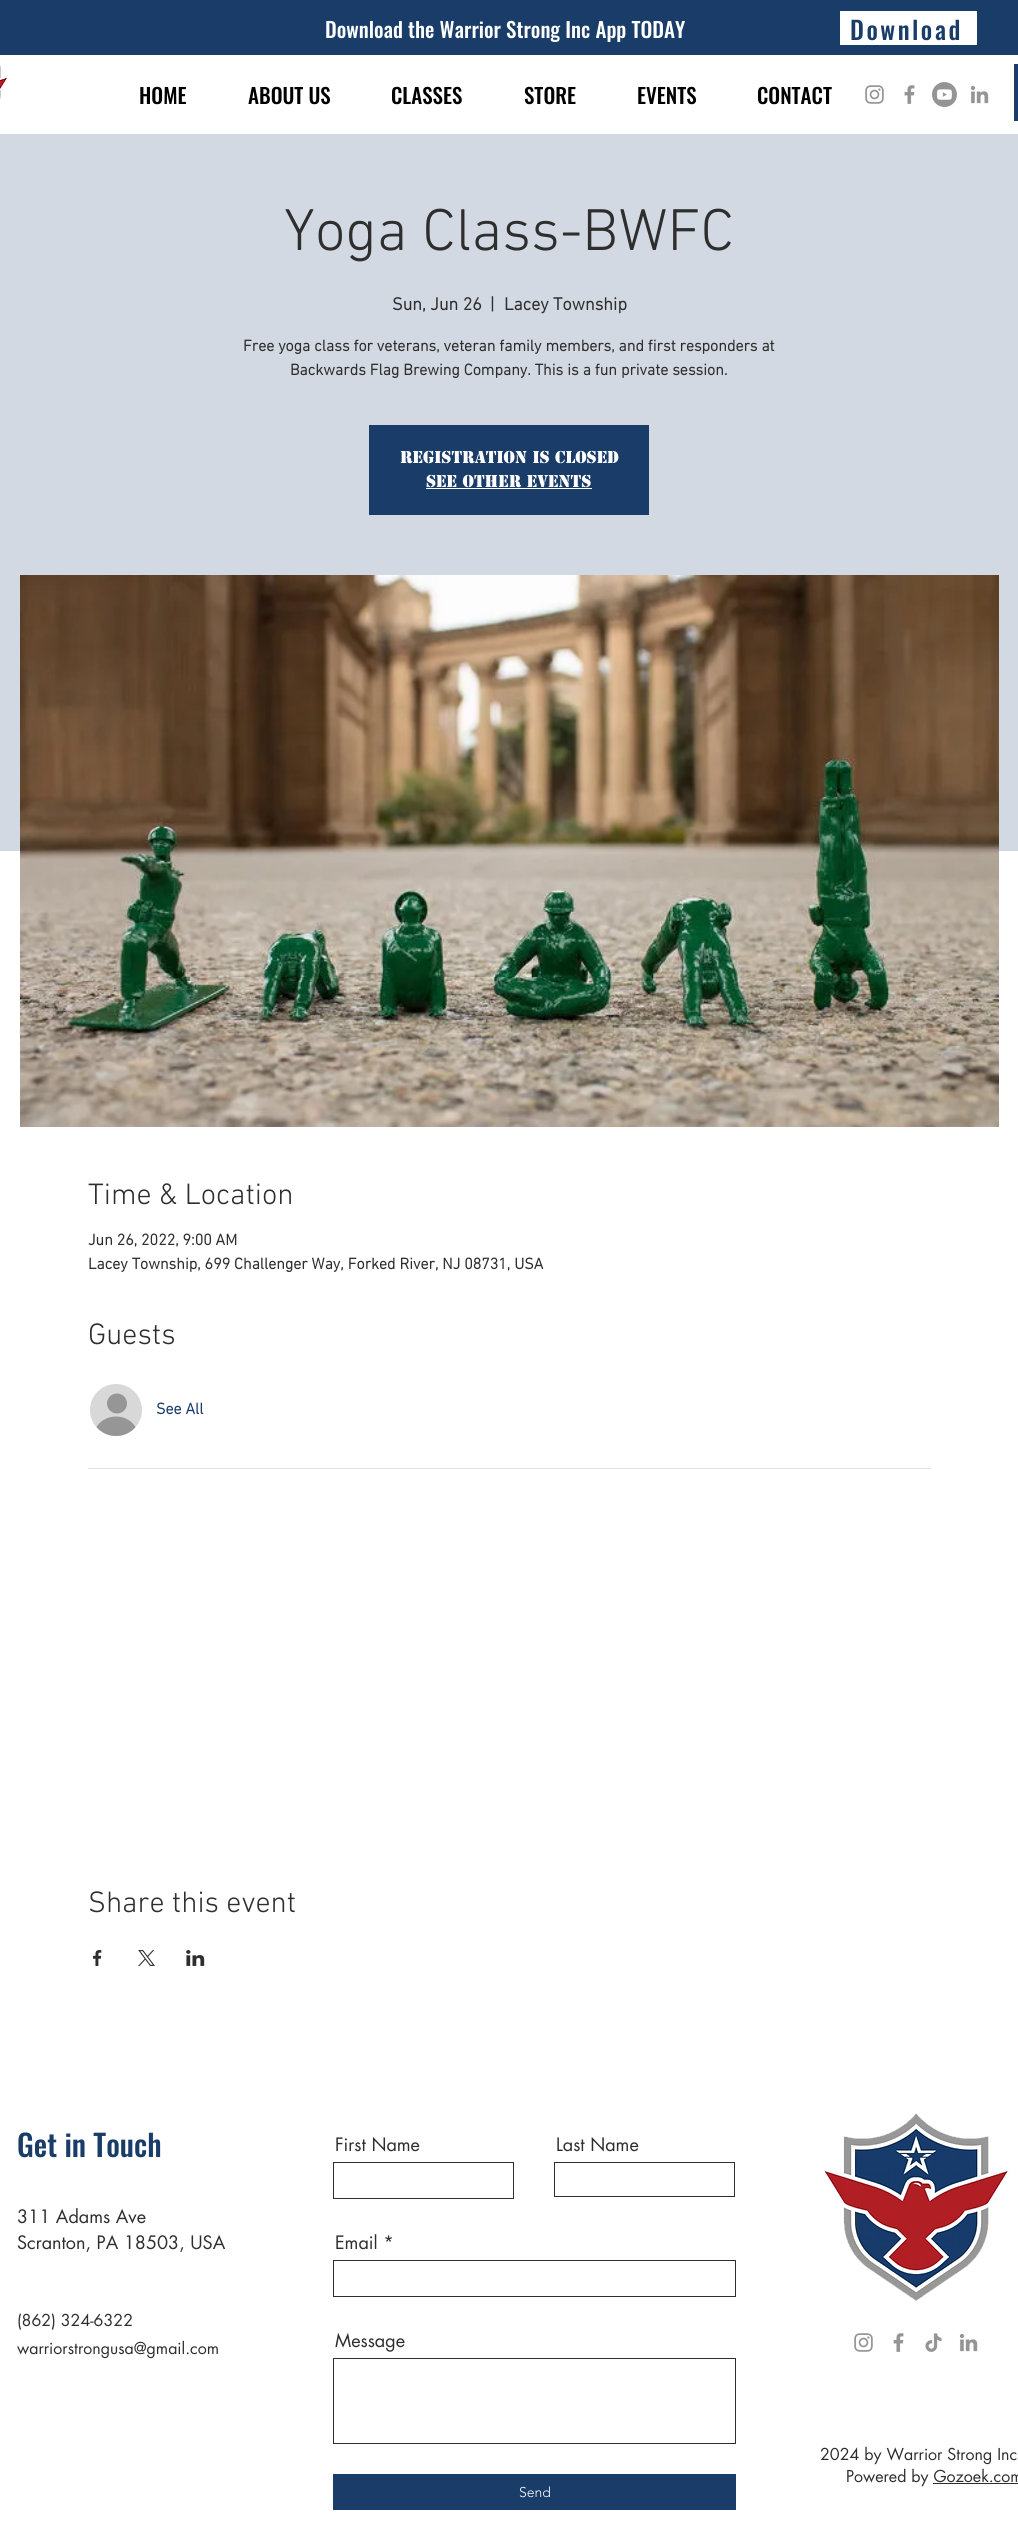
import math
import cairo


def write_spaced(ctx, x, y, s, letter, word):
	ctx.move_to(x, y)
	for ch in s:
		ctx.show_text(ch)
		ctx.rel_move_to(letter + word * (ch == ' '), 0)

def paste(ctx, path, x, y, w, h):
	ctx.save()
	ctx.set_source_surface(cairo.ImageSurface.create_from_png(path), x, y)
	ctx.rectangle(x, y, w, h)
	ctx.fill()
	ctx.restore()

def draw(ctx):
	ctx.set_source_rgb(1, 1, 1)
	ctx.paint()
	ctx.set_source_rgb(0.098, 0.235, 0.412)
	ctx.rectangle(0, 0, 1018, 55)
	ctx.fill()
	ctx.select_font_face('Oswald Medium')
	ctx.set_font_size(21)
	ctx.set_source_rgb(1, 1, 1)
	ctx.move_to(325, 38)
	ctx.show_text('Download the Warrior Strong Inc App TODAY')
	ctx.rectangle(840, 11, 137, 34)
	ctx.fill()
	ctx.set_font_size(25)
	ctx.set_source_rgb(0.098, 0.235, 0.412)
	write_spaced(ctx, 850, 40, 'Download', 2.5, 0)
	paste(ctx, 'media/1.png', 0, 66, 8, 33)
	ctx.set_font_size(21)
	ctx.set_source_rgb(0, 0, 0)
	for x, y, s in [
		(139, 104, 'HOME'),
		(248, 104, 'ABOUT US'),
		(391, 104, 'CLASSES'),
		(524, 104, 'STORE'),
		(637, 104, 'EVENTS'),
		(757, 104, 'CONTACT'),
	]:
		ctx.move_to(x, y)
		ctx.show_text(s)
	paste(ctx, 'media/2.png', 865, 85, 19, 19)
	paste(ctx, 'media/3.png', 904, 85, 11, 19)
	paste(ctx, 'media/4.png', 932, 82, 25, 25)
	paste(ctx, 'media/5.png', 970, 85, 19, 19)
	ctx.set_source_rgb(0.098, 0.235, 0.412)
	ctx.rectangle(1014, 64, 4, 57)
	ctx.fill()
	ctx.set_source_rgb(0.824, 0.851, 0.886)
	ctx.rectangle(0, 134, 1018, 717)
	ctx.fill()
	ctx.select_font_face('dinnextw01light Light')
	ctx.set_font_size(60)
	ctx.set_source_rgb(0.184, 0.18, 0.18)
	ctx.move_to(284, 250)
	ctx.show_text('Yoga Class-BWFC')
	ctx.select_font_face('dinnextw01light', cairo.FONT_SLANT_NORMAL, cairo.FONT_WEIGHT_BOLD)
	ctx.set_font_size(18)
	for x, y, s in [
		(392, 310, 'Sun, Jun 26'),
		(490, 310, '|'),
		(504, 310, 'Lacey Township'),
	]:
		ctx.move_to(x, y)
		ctx.show_text(s)
	ctx.set_font_size(16)
	ctx.move_to(243, 351)
	ctx.show_text('Free yoga class for veterans, veteran family members, and first responders at')
	ctx.move_to(290, 375)
	ctx.show_text('Backwards Flag Brewing Company. This is a fun private session.')
	ctx.set_source_rgb(0.098, 0.235, 0.412)
	ctx.rectangle(369, 425, 280, 90)
	ctx.fill()
	ctx.select_font_face('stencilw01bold', cairo.FONT_SLANT_NORMAL, cairo.FONT_WEIGHT_BOLD)
	ctx.set_source_rgb(1, 1, 1)
	ctx.move_to(400, 463)
	ctx.show_text('Registration is Closed')
	ctx.move_to(426, 487)
	ctx.show_text('See other events')
	ctx.rectangle(426, 488, 166, 1)
	ctx.fill()
	paste(ctx, 'media/6.png', 20, 575, 979, 552)
	ctx.select_font_face('dinnextw01light Light')
	ctx.set_font_size(30)
	ctx.set_source_rgb(0.184, 0.18, 0.18)
	ctx.move_to(88, 1204)
	ctx.show_text('Time & Location')
	ctx.select_font_face('dinnextw01light', cairo.FONT_SLANT_NORMAL, cairo.FONT_WEIGHT_BOLD)
	ctx.set_font_size(16)
	ctx.move_to(88, 1245)
	ctx.show_text('Jun 26, 2022, 9:00 AM')
	ctx.move_to(88, 1269)
	ctx.show_text('Lacey Township, 699 Challenger Way, Forked River, NJ 08731, USA')
	ctx.select_font_face('dinnextw01light Light')
	ctx.set_font_size(30)
	ctx.move_to(88, 1344)
	ctx.show_text('Guests')
	ctx.set_source_rgb(0.847, 0.847, 0.847)
	ctx.new_path()
	ctx.arc(116, 1410, 27, 0, 2 * math.pi)
	ctx.fill_preserve()
	ctx.set_source_rgb(1, 1, 1)
	ctx.stroke()
	ctx.set_source_rgb(0.588, 0.588, 0.588)
	ctx.arc(117, 1403.5, 10, 0, 2 * math.pi)
	ctx.fill()
	ctx.new_path()
	ctx.move_to(135.5, 1427)
	ctx.curve_to(125.5, 1439, 106.5, 1439, 96.5, 1427)
	ctx.curve_to(105, 1413, 127, 1413, 135.5, 1427)
	ctx.close_path()
	ctx.fill()
	ctx.select_font_face('dinnextw01light', cairo.FONT_SLANT_NORMAL, cairo.FONT_WEIGHT_BOLD)
	ctx.set_font_size(16)
	ctx.set_source_rgb(0.098, 0.235, 0.412)
	ctx.move_to(156, 1414)
	ctx.show_text('See All')
	ctx.set_source_rgb(0.878, 0.878, 0.878)
	ctx.rectangle(88, 1468, 843, 1)
	ctx.fill()
	ctx.select_font_face('dinnextw01light Light')
	ctx.set_font_size(30)
	ctx.set_source_rgb(0.184, 0.18, 0.18)
	ctx.move_to(88, 1912)
	ctx.show_text('Share this event')
	paste(ctx, 'media/7.png', 93, 1950, 9, 16)
	paste(ctx, 'media/8.png', 138, 1950, 17, 16)
	paste(ctx, 'media/9.png', 186, 1950, 19, 16)
	ctx.select_font_face('Oswald Medium')
	ctx.set_source_rgb(0.098, 0.235, 0.412)
	ctx.move_to(17, 2157)
	ctx.show_text('Get in Touch')
	ctx.select_font_face('futura')
	ctx.set_font_size(18)
	ctx.set_source_rgb(0.184, 0.18, 0.18)
	ctx.move_to(17, 2223)
	ctx.show_text('311 Adams Ave')
	ctx.move_to(17, 2249)
	ctx.show_text('Scranton, PA 18503, USA')
	ctx.set_font_size(16)
	ctx.move_to(17, 2326)
	ctx.show_text('(862) 324-6322')
	ctx.move_to(17, 2354)
	ctx.show_text('warriorstrongusa@gmail.com')
	ctx.set_font_size(18)
	ctx.move_to(335, 2151)
	ctx.show_text('First Name')
	ctx.rectangle(333.5, 2162.5, 180, 36)
	ctx.set_line_width(1)
	ctx.stroke()
	ctx.move_to(556, 2151)
	ctx.show_text('Last Name')
	ctx.rectangle(554.5, 2162.5, 180, 34)
	ctx.stroke()
	ctx.move_to(335, 2249)
	ctx.show_text('Email *')
	ctx.rectangle(333.5, 2260.5, 402, 36)
	ctx.stroke()
	ctx.move_to(335, 2347)
	ctx.show_text('Message')
	ctx.rectangle(333.5, 2358.5, 402, 85)
	ctx.stroke()
	ctx.set_source_rgb(0.098, 0.235, 0.412)
	ctx.rectangle(333, 2474, 403, 36)
	ctx.fill()
	ctx.select_font_face('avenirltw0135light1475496 Light')
	ctx.set_font_size(14)
	ctx.set_source_rgb(1, 1, 1)
	ctx.move_to(519, 2497)
	ctx.show_text('Send')
	paste(ctx, 'media/10.png', 824, 2113, 186, 188)
	paste(ctx, 'media/2.png', 854, 2333, 19, 19)
	paste(ctx, 'media/3.png', 893, 2333, 11, 19)
	paste(ctx, 'media/11.png', 925, 2333, 17, 19)
	paste(ctx, 'media/5.png', 959, 2333, 19, 19)
	ctx.select_font_face('futura')
	ctx.set_font_size(16)
	ctx.set_source_rgb(0.184, 0.18, 0.18)
	ctx.move_to(820, 2460)
	ctx.show_text('2024 by Warrior Strong Inc')
	ctx.move_to(846, 2482)
	ctx.show_text('Powered by Gozoek.com')
	ctx.rectangle(933, 2483, 85, 1)
	ctx.fill()


surface = cairo.ImageSurface(cairo.FORMAT_RGB24, 1018, 2528)
ctx = cairo.Context(surface)
options = cairo.FontOptions()
options.set_hint_metrics(cairo.HINT_METRICS_OFF)
options.set_hint_style(cairo.HINT_STYLE_NONE)
ctx.set_font_options(options)
ctx.set_miter_limit(4)
draw(ctx)
surface.write_to_png('image.png')
